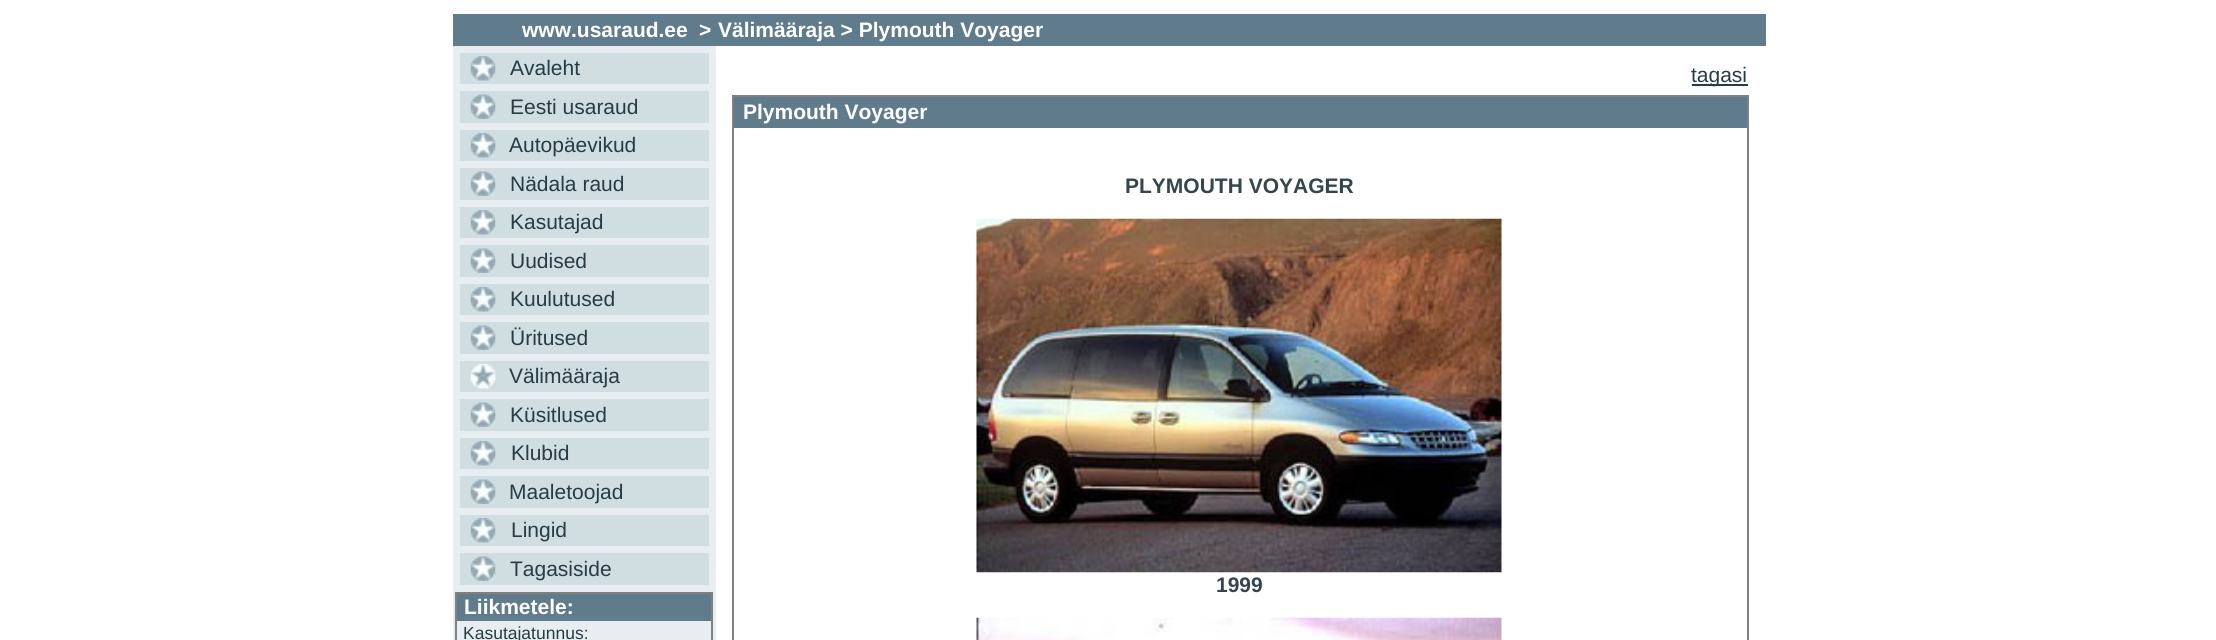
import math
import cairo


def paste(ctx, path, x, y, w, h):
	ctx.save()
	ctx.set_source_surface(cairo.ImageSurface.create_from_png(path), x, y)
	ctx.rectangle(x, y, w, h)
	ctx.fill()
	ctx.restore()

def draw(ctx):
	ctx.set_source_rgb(1, 1, 1)
	ctx.paint()
	ctx.set_source_rgb(0.91, 0.929, 0.945)
	ctx.rectangle(453, 46, 263, 594)
	ctx.fill()
	ctx.set_source_rgb(0.376, 0.486, 0.549)
	ctx.rectangle(453, 14, 1313, 32)
	ctx.fill()
	ctx.select_font_face('Liberation Sans', cairo.FONT_SLANT_NORMAL, cairo.FONT_WEIGHT_BOLD)
	ctx.set_font_size(21)
	ctx.set_source_rgb(1, 1, 1)
	ctx.move_to(522, 37)
	ctx.show_text('www.usaraud.ee')
	ctx.move_to(699, 37)
	ctx.show_text('>')
	ctx.set_source_rgb(0.816, 0.867, 0.882)
	ctx.rectangle(460, 53, 249, 31)
	ctx.fill()
	paste(ctx, 'media/1.png', 470, 56, 26, 25)
	ctx.select_font_face('Liberation Sans')
	ctx.set_source_rgb(0.149, 0.235, 0.275)
	ctx.move_to(510, 75)
	ctx.show_text('Avaleht')
	ctx.set_source_rgb(0.816, 0.867, 0.882)
	ctx.rectangle(460, 91, 249, 32)
	ctx.fill()
	paste(ctx, 'media/2.png', 470, 94, 26, 25)
	ctx.set_source_rgb(0.149, 0.235, 0.275)
	ctx.move_to(510, 114)
	ctx.show_text('Eesti usaraud')
	ctx.set_source_rgb(0.816, 0.867, 0.882)
	ctx.rectangle(460, 130, 249, 31)
	ctx.fill()
	paste(ctx, 'media/1.png', 470, 133, 26, 25)
	ctx.set_source_rgb(0.149, 0.235, 0.275)
	ctx.move_to(509, 152)
	ctx.show_text('Autopäevikud')
	ctx.set_source_rgb(0.816, 0.867, 0.882)
	ctx.rectangle(460, 168, 249, 32)
	ctx.fill()
	paste(ctx, 'media/3.png', 470, 171, 26, 25)
	ctx.set_source_rgb(0.149, 0.235, 0.275)
	ctx.move_to(510, 191)
	ctx.show_text('Nädala raud')
	ctx.set_source_rgb(0.816, 0.867, 0.882)
	ctx.rectangle(460, 207, 249, 31)
	ctx.fill()
	paste(ctx, 'media/4.png', 470, 210, 26, 25)
	ctx.set_source_rgb(0.149, 0.235, 0.275)
	ctx.move_to(510, 229)
	ctx.show_text('Kasutajad')
	ctx.set_source_rgb(0.816, 0.867, 0.882)
	ctx.rectangle(460, 245, 249, 32)
	ctx.fill()
	paste(ctx, 'media/3.png', 470, 248, 26, 25)
	ctx.set_source_rgb(0.149, 0.235, 0.275)
	ctx.move_to(510, 268)
	ctx.show_text('Uudised')
	ctx.set_source_rgb(0.816, 0.867, 0.882)
	ctx.rectangle(460, 284, 249, 31)
	ctx.fill()
	paste(ctx, 'media/1.png', 470, 287, 26, 25)
	ctx.set_source_rgb(0.149, 0.235, 0.275)
	ctx.move_to(510, 306)
	ctx.show_text('Kuulutused')
	ctx.set_source_rgb(0.816, 0.867, 0.882)
	ctx.rectangle(460, 322, 249, 32)
	ctx.fill()
	paste(ctx, 'media/3.png', 470, 325, 26, 25)
	ctx.set_source_rgb(0.149, 0.235, 0.275)
	ctx.move_to(510, 345)
	ctx.show_text('Üritused')
	ctx.set_source_rgb(0.816, 0.867, 0.882)
	ctx.rectangle(460, 361, 249, 31)
	ctx.fill()
	paste(ctx, 'media/5.png', 470, 364, 26, 25)
	ctx.set_source_rgb(0.149, 0.235, 0.275)
	ctx.move_to(509, 383)
	ctx.show_text('Välimääraja')
	ctx.set_source_rgb(0.816, 0.867, 0.882)
	ctx.rectangle(460, 399, 249, 32)
	ctx.fill()
	paste(ctx, 'media/3.png', 470, 402, 26, 25)
	ctx.set_source_rgb(0.149, 0.235, 0.275)
	ctx.move_to(510, 422)
	ctx.show_text('Küsitlused')
	ctx.set_source_rgb(0.816, 0.867, 0.882)
	ctx.rectangle(460, 438, 249, 31)
	ctx.fill()
	paste(ctx, 'media/1.png', 470, 441, 26, 25)
	ctx.set_source_rgb(0.149, 0.235, 0.275)
	ctx.move_to(511, 460)
	ctx.show_text('Klubid')
	ctx.set_source_rgb(0.816, 0.867, 0.882)
	ctx.rectangle(460, 476, 249, 32)
	ctx.fill()
	paste(ctx, 'media/3.png', 470, 479, 26, 25)
	ctx.set_source_rgb(0.149, 0.235, 0.275)
	ctx.move_to(509, 499)
	ctx.show_text('Maaletoojad')
	ctx.set_source_rgb(0.816, 0.867, 0.882)
	ctx.rectangle(460, 515, 249, 31)
	ctx.fill()
	paste(ctx, 'media/1.png', 470, 518, 26, 25)
	ctx.set_source_rgb(0.149, 0.235, 0.275)
	ctx.move_to(511, 537)
	ctx.show_text('Lingid')
	ctx.set_source_rgb(0.816, 0.867, 0.882)
	ctx.rectangle(460, 553, 249, 32)
	ctx.fill()
	paste(ctx, 'media/3.png', 470, 556, 26, 25)
	ctx.set_source_rgb(0.149, 0.235, 0.275)
	ctx.move_to(510, 576)
	ctx.show_text('Tagasiside')
	ctx.set_source_rgb(0.502, 0.502, 0.502)
	ctx.rectangle(455, 592, 257, 2)
	ctx.rectangle(711, 592, 2, 48)
	ctx.rectangle(455, 592, 2, 48)
	ctx.fill()
	ctx.set_source_rgb(0.376, 0.486, 0.549)
	ctx.rectangle(457, 594, 254, 27)
	ctx.fill()
	ctx.select_font_face('Liberation Sans', cairo.FONT_SLANT_NORMAL, cairo.FONT_WEIGHT_BOLD)
	ctx.set_source_rgb(1, 1, 1)
	ctx.move_to(464, 614)
	ctx.show_text('Liikmetele:')
	ctx.select_font_face('Liberation Sans')
	ctx.set_font_size(17.5)
	ctx.set_source_rgb(0.149, 0.235, 0.275)
	ctx.move_to(463, 639)
	ctx.show_text('Kasutajatunnus:')
	ctx.select_font_face('Liberation Sans', cairo.FONT_SLANT_NORMAL, cairo.FONT_WEIGHT_BOLD)
	ctx.set_font_size(21)
	ctx.set_source_rgb(1, 1, 1)
	ctx.move_to(718, 37)
	ctx.show_text('Välimääraja > Plymouth Voyager')
	ctx.set_source_rgb(0.149, 0.235, 0.275)
	ctx.rectangle(1692, 84, 56, 2)
	ctx.fill()
	ctx.select_font_face('Liberation Sans')
	ctx.move_to(1691, 82)
	ctx.show_text('tagasi')
	ctx.set_source_rgb(0.502, 0.502, 0.502)
	ctx.rectangle(732, 95, 1016, 2)
	ctx.rectangle(1747, 95, 2, 545)
	ctx.rectangle(732, 95, 2, 545)
	ctx.fill()
	ctx.set_source_rgb(0.376, 0.486, 0.549)
	ctx.rectangle(734, 97, 1013, 31)
	ctx.fill()
	ctx.select_font_face('Liberation Sans', cairo.FONT_SLANT_NORMAL, cairo.FONT_WEIGHT_BOLD)
	ctx.set_source_rgb(1, 1, 1)
	ctx.move_to(743, 119)
	ctx.show_text('Plymouth Voyager')
	ctx.set_source_rgb(0.204, 0.271, 0.306)
	ctx.move_to(1125, 193)
	ctx.show_text('PLYMOUTH VOYAGER')
	paste(ctx, 'media/6.png', 976, 218, 526, 355)
	ctx.move_to(1216, 592)
	ctx.show_text('1999')
	paste(ctx, 'media/7.png', 976, 617, 526, 23)


surface = cairo.ImageSurface(cairo.FORMAT_RGB24, 2216, 640)
ctx = cairo.Context(surface)
options = cairo.FontOptions()
options.set_hint_metrics(cairo.HINT_METRICS_OFF)
options.set_hint_style(cairo.HINT_STYLE_NONE)
ctx.set_font_options(options)
ctx.set_miter_limit(4)
draw(ctx)
surface.write_to_png('image.png')
